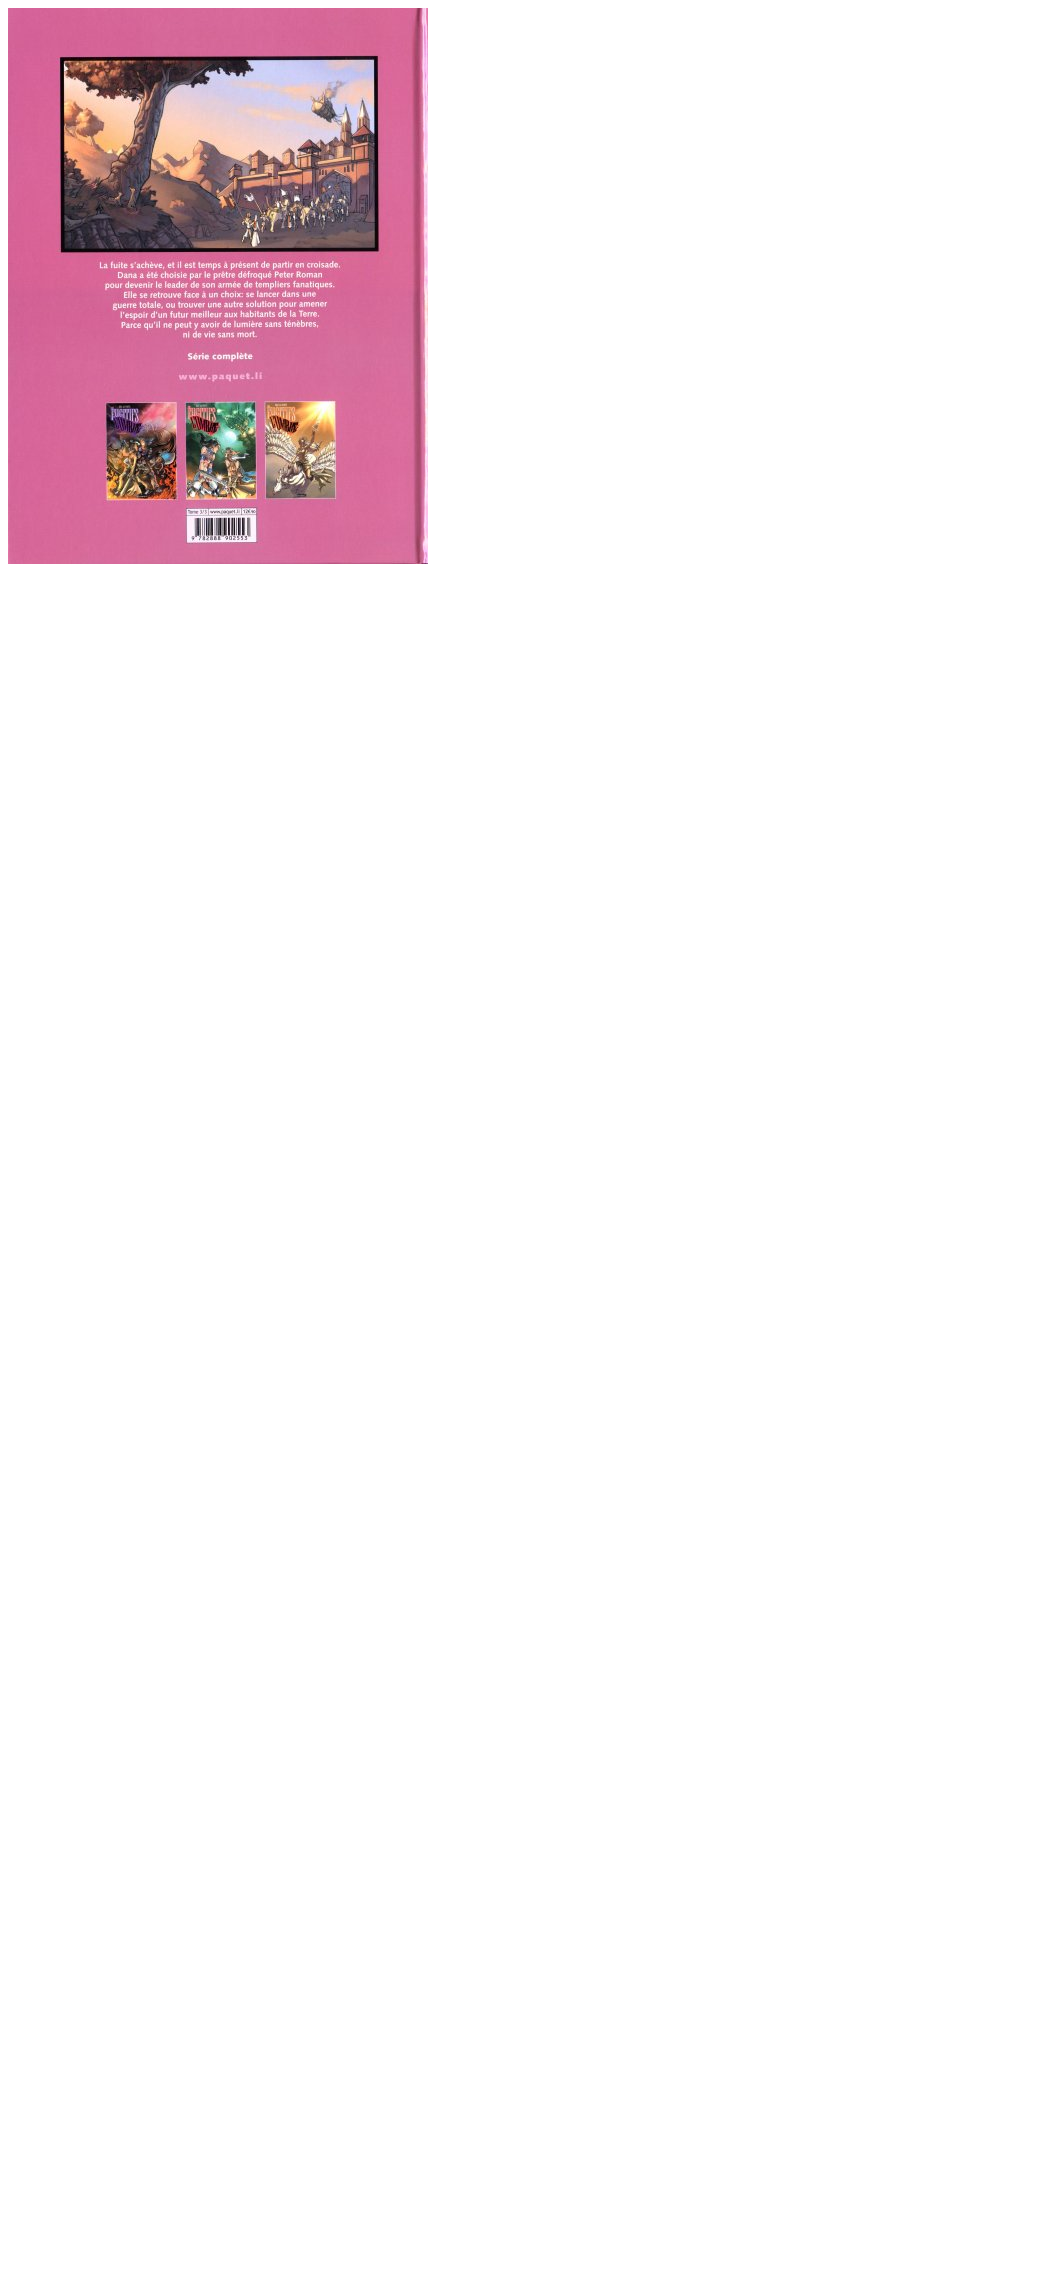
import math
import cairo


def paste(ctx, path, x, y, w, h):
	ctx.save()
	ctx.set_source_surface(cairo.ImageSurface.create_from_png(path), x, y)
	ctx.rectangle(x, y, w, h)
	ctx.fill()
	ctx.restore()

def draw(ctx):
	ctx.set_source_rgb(1, 1, 1)
	ctx.paint()
	paste(ctx, 'media/1.png', 8, 8, 420, 556)


surface = cairo.ImageSurface(cairo.FORMAT_RGB24, 1052, 2282)
ctx = cairo.Context(surface)
options = cairo.FontOptions()
options.set_hint_metrics(cairo.HINT_METRICS_OFF)
options.set_hint_style(cairo.HINT_STYLE_NONE)
ctx.set_font_options(options)
ctx.set_miter_limit(4)
draw(ctx)
surface.write_to_png('image.png')
